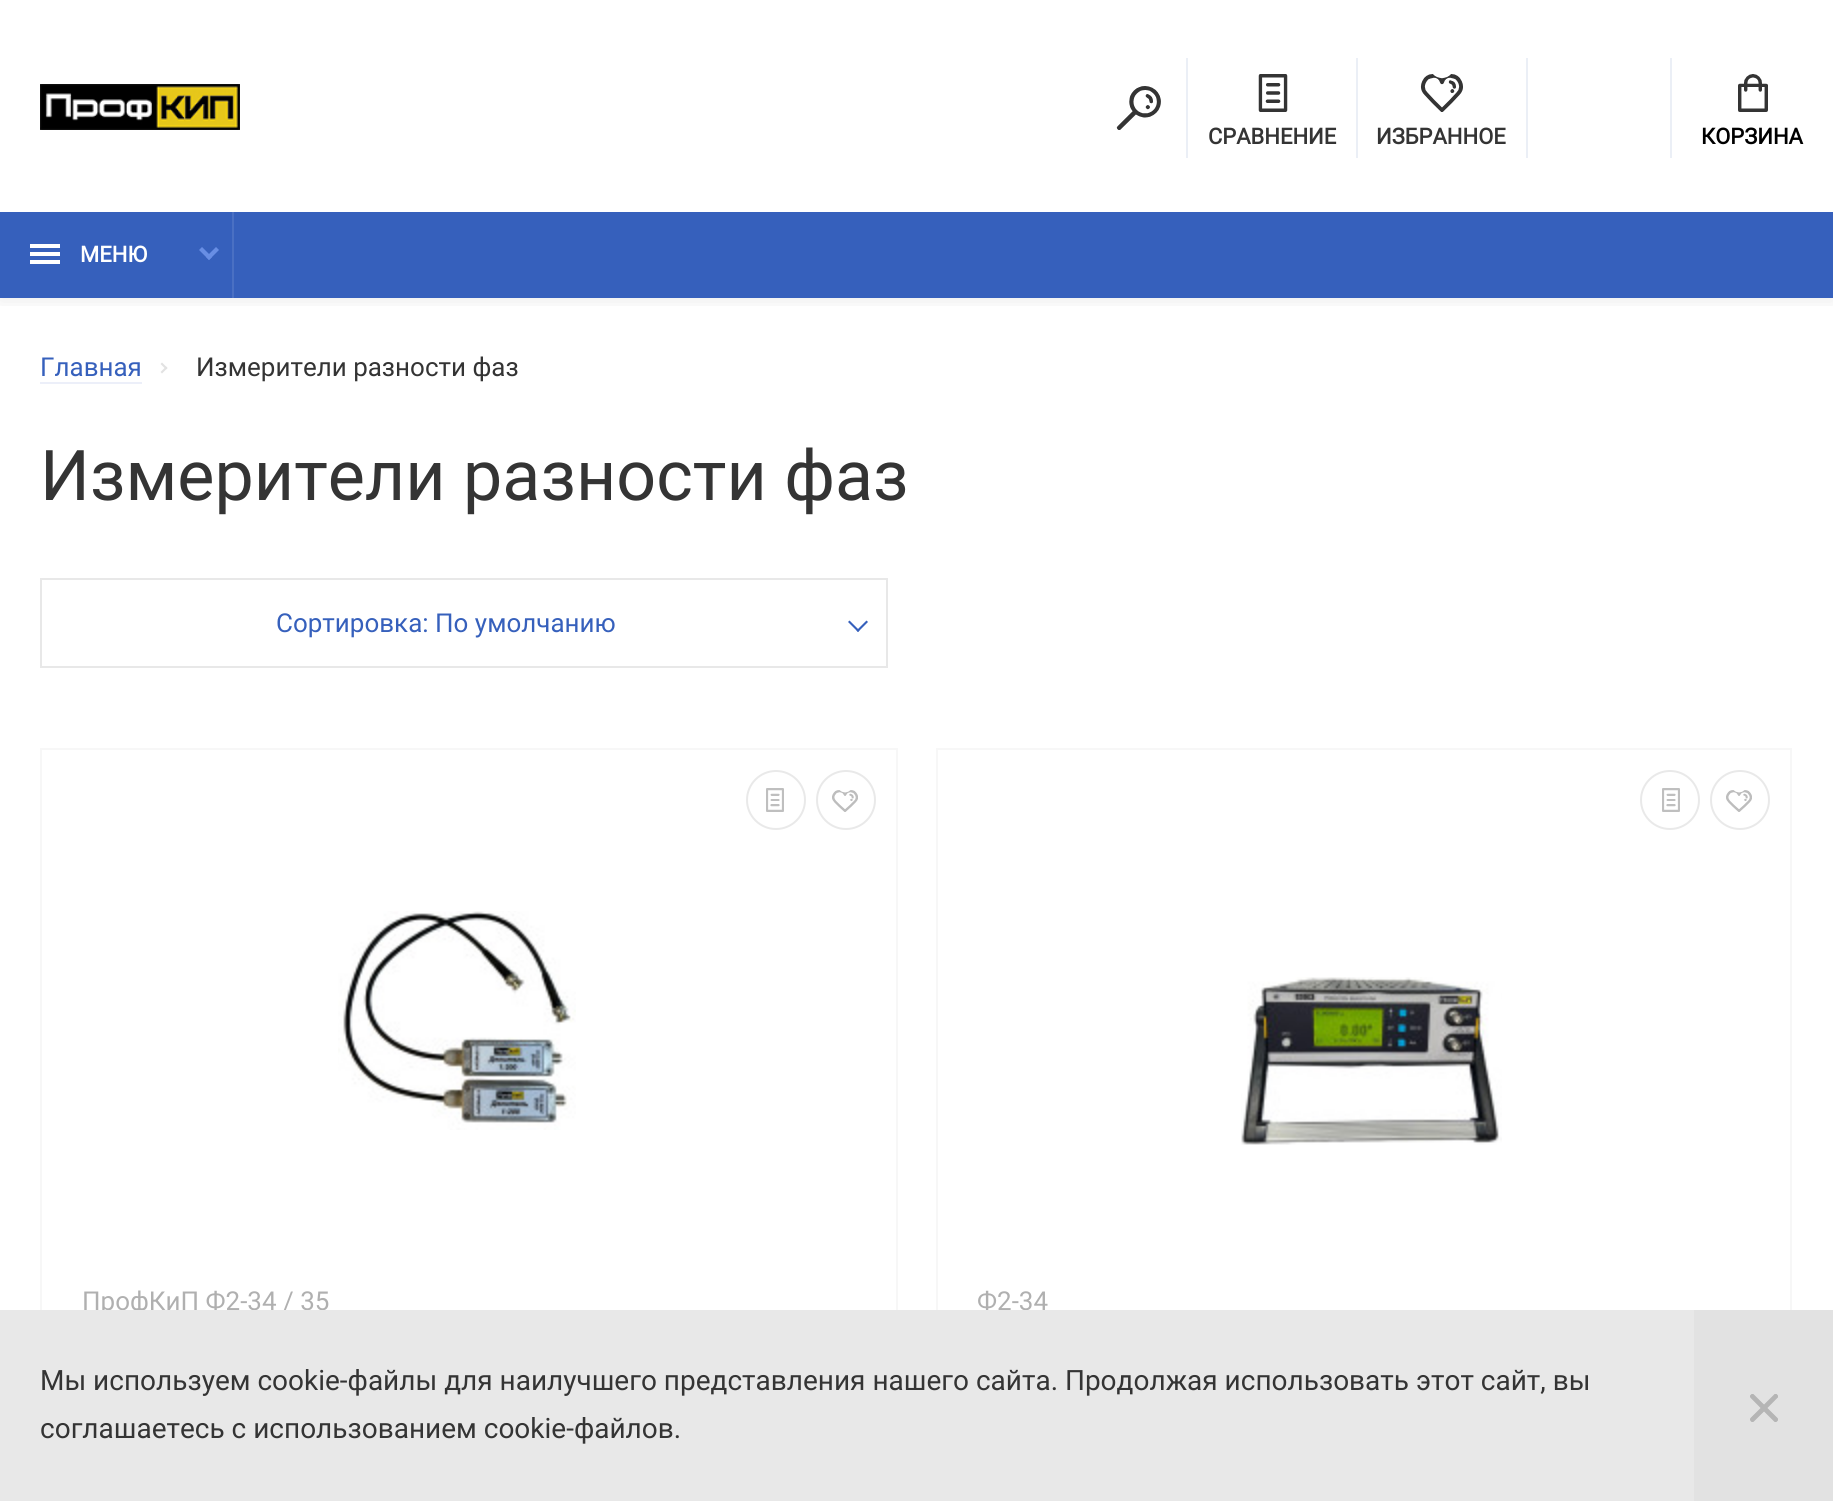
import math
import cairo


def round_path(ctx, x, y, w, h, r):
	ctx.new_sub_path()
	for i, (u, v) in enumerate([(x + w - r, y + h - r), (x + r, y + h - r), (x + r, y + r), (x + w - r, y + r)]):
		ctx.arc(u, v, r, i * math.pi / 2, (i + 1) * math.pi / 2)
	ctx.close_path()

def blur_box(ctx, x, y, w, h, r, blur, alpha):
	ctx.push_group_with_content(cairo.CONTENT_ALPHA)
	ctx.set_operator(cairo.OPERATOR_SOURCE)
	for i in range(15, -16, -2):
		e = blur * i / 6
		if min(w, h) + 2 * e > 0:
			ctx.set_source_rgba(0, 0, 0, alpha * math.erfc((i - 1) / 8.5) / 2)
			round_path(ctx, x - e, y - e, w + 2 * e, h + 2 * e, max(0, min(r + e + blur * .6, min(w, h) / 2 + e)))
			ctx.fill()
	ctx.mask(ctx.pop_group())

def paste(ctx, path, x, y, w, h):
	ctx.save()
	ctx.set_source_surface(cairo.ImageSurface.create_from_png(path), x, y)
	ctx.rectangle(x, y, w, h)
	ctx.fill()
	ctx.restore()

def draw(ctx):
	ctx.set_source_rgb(1, 1, 1)
	ctx.paint()
	ctx.save()
	ctx.rectangle(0, 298, 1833, 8)
	ctx.clip()
	ctx.set_source_rgb(0, 0, 0)
	blur_box(ctx, 0, 0, 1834, 298, 0, 10, 0.1)
	ctx.restore()
	paste(ctx, 'media/1.png', 40, 84, 200, 46)
	paste(ctx, 'media/2.png', 1116, 86, 45, 44)
	ctx.set_source_rgb(0.918, 0.937, 0.961)
	ctx.rectangle(1186, 58, 2, 100)
	ctx.fill()
	paste(ctx, 'media/3.png', 1258, 74, 30, 38)
	ctx.select_font_face('Roboto', cairo.FONT_SLANT_NORMAL, cairo.FONT_WEIGHT_BOLD)
	ctx.set_font_size(22)
	ctx.set_source_rgb(0.204, 0.204, 0.204)
	ctx.move_to(1208, 144)
	ctx.show_text('СРАВНЕНИЕ')
	ctx.set_source_rgb(0.918, 0.937, 0.961)
	ctx.rectangle(1356, 58, 2, 100)
	ctx.fill()
	paste(ctx, 'media/4.png', 1420, 74, 43, 38)
	ctx.set_source_rgb(0.204, 0.204, 0.204)
	ctx.move_to(1376, 144)
	ctx.show_text('ИЗБРАННОЕ')
	ctx.set_source_rgb(0.918, 0.937, 0.961)
	ctx.rectangle(1526, 58, 2, 100)
	ctx.fill()
	ctx.rectangle(1670, 58, 2, 100)
	ctx.fill()
	paste(ctx, 'media/5.png', 1738, 74, 30, 38)
	ctx.set_source_rgb(0, 0, 0)
	ctx.move_to(1701, 144)
	ctx.show_text('КОРЗИНА')
	ctx.set_source_rgb(0.212, 0.376, 0.737)
	ctx.rectangle(0, 212, 1833, 86)
	ctx.fill()
	ctx.set_source_rgb(0.29, 0.439, 0.765)
	ctx.rectangle(232, 212, 2, 86)
	ctx.fill()
	paste(ctx, 'media/6.png', 30, 244, 30, 20)
	ctx.set_source_rgb(1, 1, 1)
	ctx.move_to(80, 262)
	ctx.show_text('МЕНЮ')
	ctx.set_source_rgb(0.408, 0.557, 0.894)
	ctx.new_path()
	ctx.move_to(216, 247)
	ctx.line_to(219, 250)
	ctx.line_to(209, 260)
	ctx.line_to(206, 257)
	ctx.close_path()
	ctx.fill()
	ctx.new_path()
	ctx.move_to(202, 247)
	ctx.line_to(212, 257)
	ctx.line_to(209, 260)
	ctx.line_to(199, 250)
	ctx.close_path()
	ctx.fill()
	ctx.select_font_face('Roboto')
	ctx.set_font_size(26)
	ctx.set_source_rgb(0.212, 0.376, 0.737)
	ctx.move_to(40, 376)
	ctx.show_text('Главная')
	ctx.set_source_rgb(0.922, 0.937, 0.973)
	ctx.rectangle(40, 382, 102, 2)
	ctx.fill()
	ctx.set_source_rgb(0.886, 0.886, 0.886)
	ctx.new_path()
	ctx.move_to(160.5, 364)
	ctx.line_to(162, 362.5)
	ctx.line_to(167.5, 368)
	ctx.line_to(166, 369.5)
	ctx.close_path()
	ctx.fill()
	ctx.new_path()
	ctx.move_to(160.5, 372)
	ctx.line_to(166, 366.5)
	ctx.line_to(167.5, 368)
	ctx.line_to(162, 373.5)
	ctx.close_path()
	ctx.fill()
	ctx.set_source_rgb(0.204, 0.204, 0.204)
	ctx.move_to(196, 376)
	ctx.show_text('Измерители разности фаз')
	ctx.set_font_size(70)
	ctx.move_to(40, 500)
	ctx.show_text('Измерители разности фаз')
	ctx.rectangle(41, 579, 846, 88)
	ctx.set_source_rgb(0.91, 0.91, 0.91)
	ctx.stroke()
	ctx.set_font_size(26)
	ctx.set_source_rgb(0.212, 0.376, 0.737)
	ctx.move_to(276, 632)
	ctx.show_text('Сортировка: По умолчанию')
	ctx.new_path()
	ctx.move_to(866.5, 620.5)
	ctx.line_to(868, 622)
	ctx.line_to(858, 632)
	ctx.line_to(856.5, 630.5)
	ctx.close_path()
	ctx.fill()
	ctx.new_path()
	ctx.move_to(849.5, 620.5)
	ctx.line_to(859.5, 630.5)
	ctx.line_to(858, 632)
	ctx.line_to(848, 622)
	ctx.close_path()
	ctx.fill()
	ctx.rectangle(41, 749, 856, 698)
	ctx.set_source_rgb(0.965, 0.965, 0.965)
	ctx.stroke()
	ctx.arc(776, 800, 29, 0, 2 * math.pi)
	ctx.set_source_rgb(0.914, 0.914, 0.914)
	ctx.stroke()
	paste(ctx, 'media/7.png', 766, 788, 18, 24)
	ctx.arc(846, 800, 29, 0, 2 * math.pi)
	ctx.stroke()
	paste(ctx, 'media/8.png', 832, 790, 26, 22)
	paste(ctx, 'media/9.png', 338, 911, 238, 219)
	ctx.set_source_rgb(0.69, 0.69, 0.69)
	ctx.move_to(82, 1310)
	ctx.show_text('ПрофКиП Ф2-34 / 35')
	ctx.rectangle(937, 749, 854, 698)
	ctx.set_source_rgb(0.965, 0.965, 0.965)
	ctx.stroke()
	ctx.arc(1670, 800, 29, 0, 2 * math.pi)
	ctx.set_source_rgb(0.914, 0.914, 0.914)
	ctx.stroke()
	paste(ctx, 'media/7.png', 1662, 788, 18, 24)
	ctx.arc(1740, 800, 29, 0, 2 * math.pi)
	ctx.stroke()
	paste(ctx, 'media/8.png', 1726, 790, 26, 22)
	paste(ctx, 'media/10.png', 1241, 977, 261, 168)
	ctx.set_source_rgb(0.69, 0.69, 0.69)
	ctx.move_to(977, 1310)
	ctx.show_text('Ф2-34')
	ctx.set_source_rgb(0.91, 0.91, 0.91)
	ctx.rectangle(0, 1310, 1694, 191)
	ctx.fill()
	ctx.set_font_size(28)
	ctx.set_source_rgb(0.204, 0.204, 0.204)
	ctx.move_to(40, 1390)
	ctx.show_text('Мы используем cookie-файлы для наилучшего представления нашего сайта. Продолжая использовать этот сайт, вы')
	ctx.set_source_rgb(0.886, 0.886, 0.886)
	ctx.rectangle(1694, 1310, 139, 191)
	ctx.fill()
	paste(ctx, 'media/11.png', 1750, 1394, 28, 28)
	ctx.set_source_rgb(0.204, 0.204, 0.204)
	ctx.move_to(40, 1438)
	ctx.show_text('соглашаетесь с использованием cookie-файлов.')


surface = cairo.ImageSurface(cairo.FORMAT_RGB24, 1833, 1501)
ctx = cairo.Context(surface)
options = cairo.FontOptions()
options.set_hint_metrics(cairo.HINT_METRICS_OFF)
options.set_hint_style(cairo.HINT_STYLE_NONE)
ctx.set_font_options(options)
ctx.set_miter_limit(4)
draw(ctx)
surface.write_to_png('image.png')
